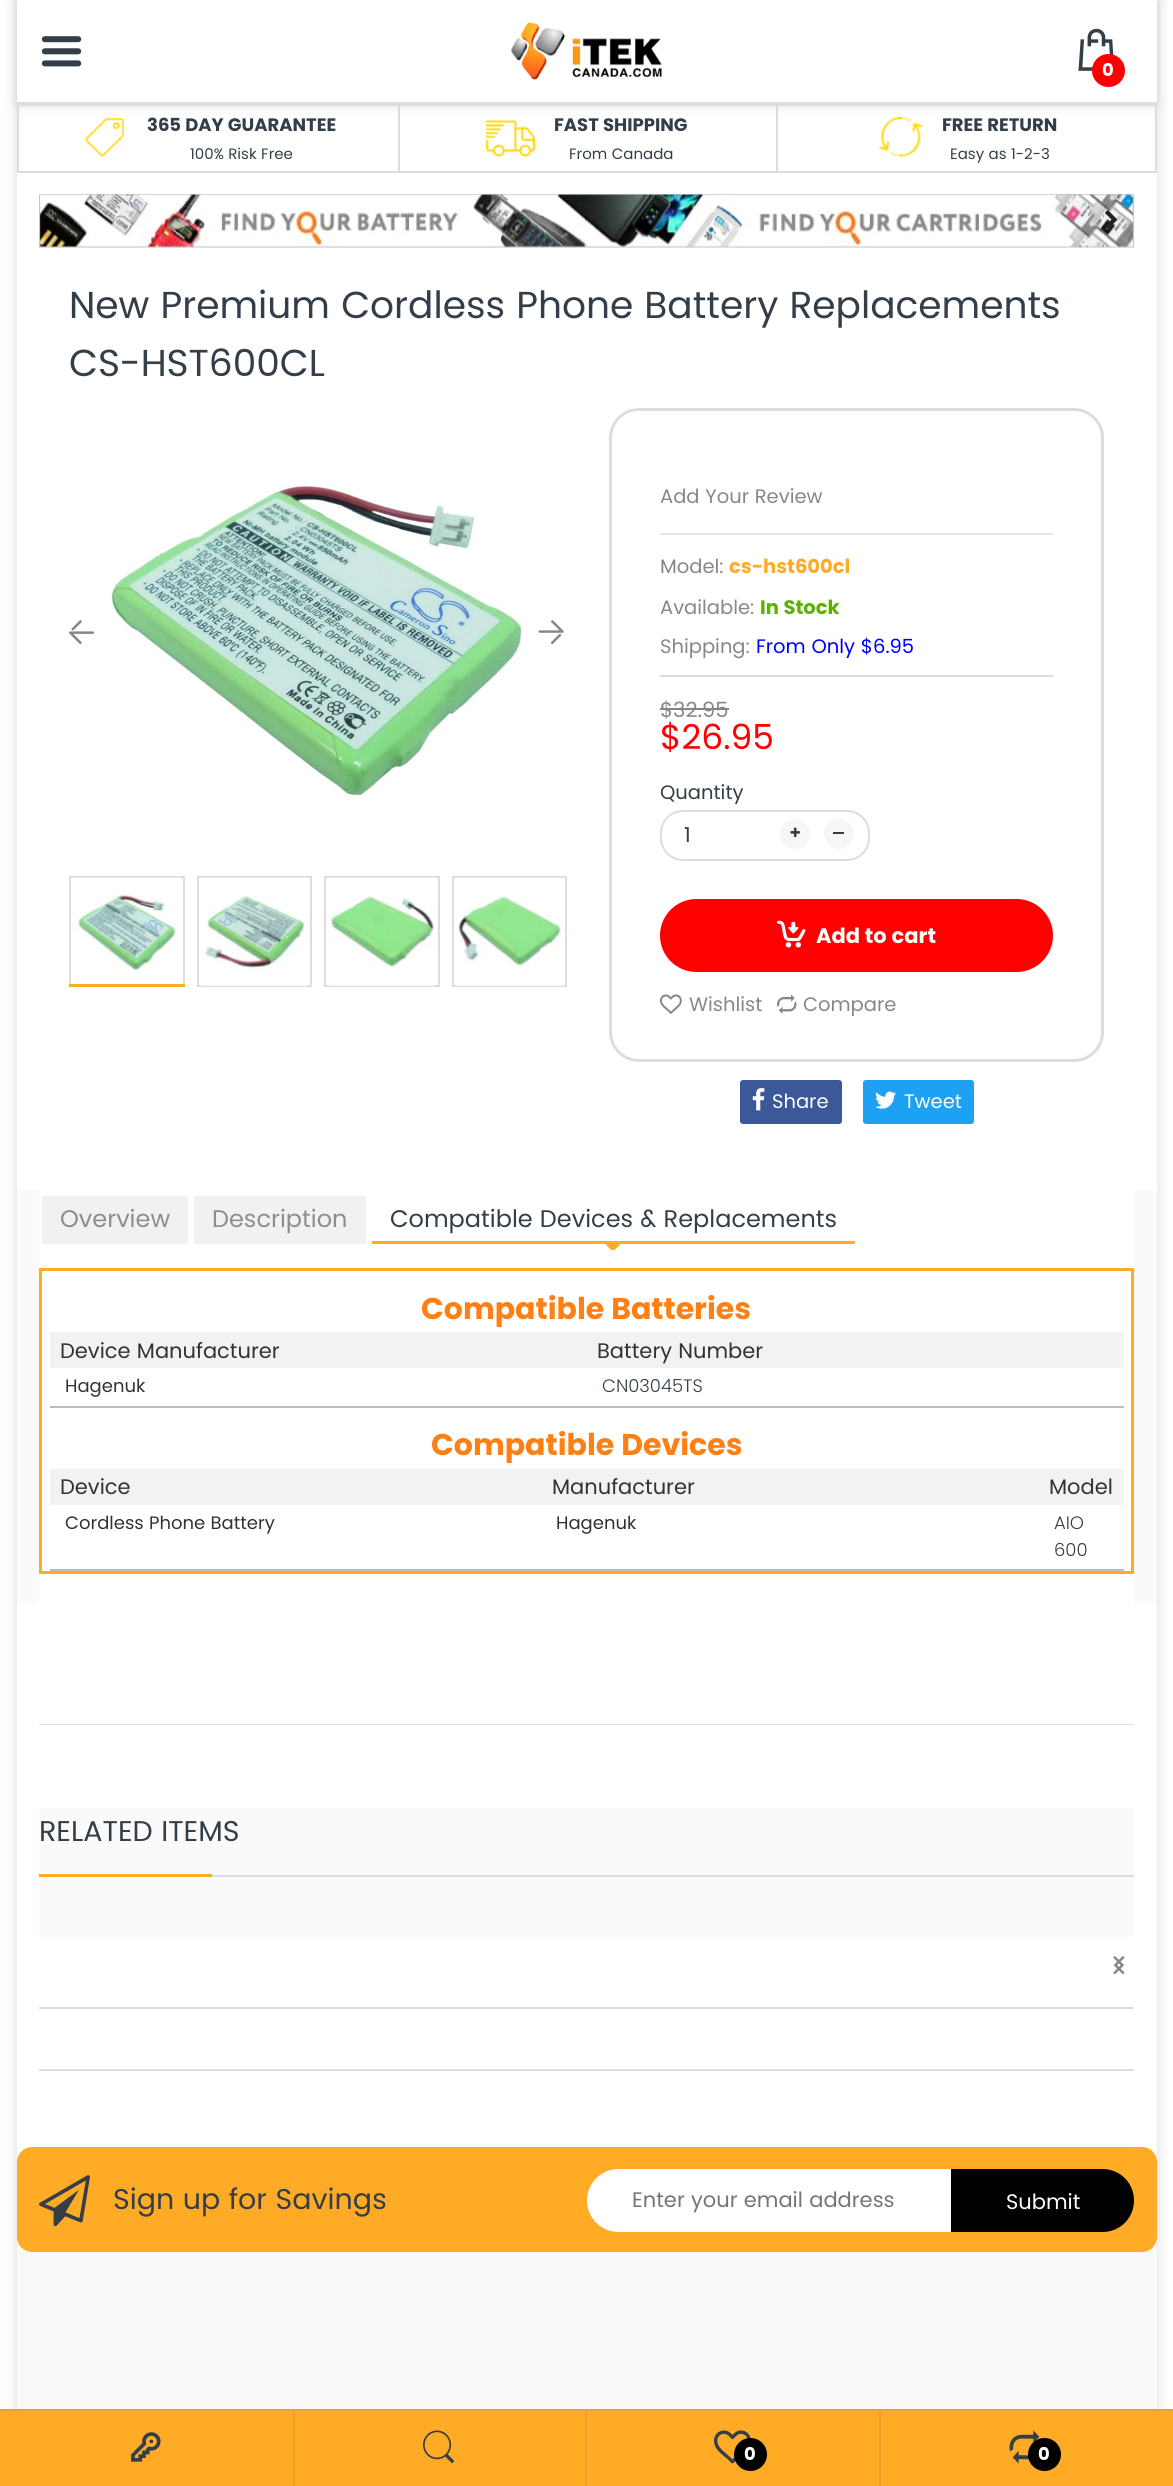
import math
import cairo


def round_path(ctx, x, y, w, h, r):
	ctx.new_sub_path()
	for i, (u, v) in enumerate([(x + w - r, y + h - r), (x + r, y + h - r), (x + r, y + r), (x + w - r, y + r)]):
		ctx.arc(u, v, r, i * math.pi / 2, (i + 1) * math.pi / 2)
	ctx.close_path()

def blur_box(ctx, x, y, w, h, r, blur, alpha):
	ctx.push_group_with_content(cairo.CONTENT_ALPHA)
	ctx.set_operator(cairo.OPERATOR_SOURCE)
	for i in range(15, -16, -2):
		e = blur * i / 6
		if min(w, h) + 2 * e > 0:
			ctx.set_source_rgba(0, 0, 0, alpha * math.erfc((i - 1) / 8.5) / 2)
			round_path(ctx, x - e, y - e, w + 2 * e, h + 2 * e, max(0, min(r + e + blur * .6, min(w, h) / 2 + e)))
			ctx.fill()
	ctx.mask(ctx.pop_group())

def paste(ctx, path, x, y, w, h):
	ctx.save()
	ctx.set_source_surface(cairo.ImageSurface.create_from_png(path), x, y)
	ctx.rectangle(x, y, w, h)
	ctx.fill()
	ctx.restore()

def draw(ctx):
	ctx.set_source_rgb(1, 1, 1)
	ctx.paint()
	ctx.set_source_rgb(0.867, 0.867, 0.867)
	blur_box(ctx, 17, 0, 1140, 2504, 0, 6, 1)
	ctx.set_source_rgb(1, 1, 1)
	ctx.rectangle(17, 106, 1140, 2056)
	ctx.fill()
	ctx.set_source_rgb(0.788, 0.788, 0.788)
	blur_box(ctx, 17, 0, 1140, 104, 0, 6, 0.75)
	ctx.set_source_rgb(1, 1, 1)
	ctx.rectangle(17, 0, 1140, 102)
	ctx.fill()
	ctx.set_source_rgb(0.867, 0.867, 0.867)
	ctx.rectangle(17, 102, 1140, 2)
	ctx.fill()
	paste(ctx, 'media/1.png', 41, 36, 41, 31)
	paste(ctx, 'media/2.png', 511, 22, 151, 58)
	paste(ctx, 'media/3.png', 1078, 28, 36, 43)
	ctx.set_source_rgb(1, 0, 0)
	ctx.arc(1108.5, 70.5, 16.5, 0, 2 * math.pi)
	ctx.fill()
	ctx.select_font_face('Poppins', cairo.FONT_SLANT_NORMAL, cairo.FONT_WEIGHT_BOLD)
	ctx.set_font_size(18)
	ctx.set_source_rgb(1, 1, 1)
	ctx.move_to(1102, 76)
	ctx.show_text('0')
	ctx.rectangle(18, 105, 1138, 67)
	ctx.set_source_rgb(0.867, 0.867, 0.867)
	ctx.stroke()
	paste(ctx, 'media/4.png', 85, 118, 39, 39)
	ctx.set_source_rgb(0.2, 0.243, 0.282)
	ctx.move_to(147, 131)
	ctx.show_text('365 DAY GUARANTEE')
	ctx.select_font_face('Poppins')
	ctx.set_font_size(15)
	ctx.move_to(190, 159)
	ctx.show_text('100% Risk Free')
	ctx.set_source_rgb(0.867, 0.867, 0.867)
	ctx.rectangle(398, 105, 2, 66)
	ctx.fill()
	paste(ctx, 'media/5.png', 486, 120, 50, 37)
	ctx.select_font_face('Poppins', cairo.FONT_SLANT_NORMAL, cairo.FONT_WEIGHT_BOLD)
	ctx.set_font_size(18)
	ctx.set_source_rgb(0.2, 0.243, 0.282)
	ctx.move_to(554, 131)
	ctx.show_text('FAST SHIPPING')
	ctx.select_font_face('Poppins')
	ctx.set_font_size(15)
	ctx.move_to(569, 159)
	ctx.show_text('From Canada')
	ctx.set_source_rgb(0.867, 0.867, 0.867)
	ctx.rectangle(776, 105, 2, 66)
	ctx.fill()
	paste(ctx, 'media/6.png', 878, 117, 45, 40)
	ctx.select_font_face('Poppins', cairo.FONT_SLANT_NORMAL, cairo.FONT_WEIGHT_BOLD)
	ctx.set_font_size(18)
	ctx.set_source_rgb(0.2, 0.243, 0.282)
	ctx.move_to(942, 131)
	ctx.show_text('FREE RETURN')
	ctx.select_font_face('Poppins')
	ctx.set_font_size(15)
	ctx.move_to(950, 159)
	ctx.show_text('Easy as 1-2-3')
	paste(ctx, 'media/7.png', 39, 194, 1095, 54)
	paste(ctx, 'media/8.png', 1105, 210, 13, 19)
	ctx.set_font_size(37.5)
	ctx.move_to(69, 318)
	ctx.show_text('New Premium Cordless Phone Battery Replacements')
	ctx.move_to(69, 376)
	ctx.show_text('CS-HST600CL')
	paste(ctx, 'media/9.png', 111, 482, 411, 314)
	paste(ctx, 'media/10.png', 69, 620, 26, 25)
	paste(ctx, 'media/11.png', 538, 620, 26, 25)
	ctx.rectangle(70, 877, 114, 109)
	ctx.set_source_rgb(0.867, 0.867, 0.867)
	ctx.stroke()
	paste(ctx, 'media/12.png', 73, 877, 108, 107)
	ctx.set_source_rgb(1, 0.671, 0.145)
	ctx.rectangle(69, 984, 116, 3)
	ctx.fill()
	ctx.rectangle(198, 877, 113, 109)
	ctx.set_source_rgb(0.867, 0.867, 0.867)
	ctx.stroke()
	paste(ctx, 'media/13.png', 200, 877, 108, 109)
	ctx.rectangle(325, 877, 114, 109)
	ctx.stroke()
	paste(ctx, 'media/14.png', 328, 877, 108, 109)
	ctx.rectangle(453, 877, 113, 109)
	ctx.stroke()
	paste(ctx, 'media/15.png', 455, 877, 108, 109)
	round_path(ctx, 610.5, 409.5, 492, 651, 28.5)
	ctx.set_line_width(3)
	ctx.stroke()
	ctx.set_font_size(19.5)
	ctx.set_source_rgb(0.529, 0.529, 0.529)
	ctx.move_to(660, 503)
	ctx.show_text('Add Your Review')
	ctx.set_source_rgb(0.902, 0.902, 0.902)
	ctx.rectangle(660, 533, 393, 2)
	ctx.fill()
	ctx.set_source_rgb(0.529, 0.529, 0.529)
	ctx.move_to(660, 573)
	ctx.show_text('Model:')
	ctx.select_font_face('Poppins', cairo.FONT_SLANT_NORMAL, cairo.FONT_WEIGHT_BOLD)
	ctx.set_source_rgb(1, 0.671, 0.145)
	ctx.move_to(729, 573)
	ctx.show_text('cs-hst600cl')
	ctx.select_font_face('Poppins')
	ctx.set_source_rgb(0.529, 0.529, 0.529)
	ctx.move_to(660, 614)
	ctx.show_text('Available:')
	ctx.select_font_face('Poppins', cairo.FONT_SLANT_NORMAL, cairo.FONT_WEIGHT_BOLD)
	ctx.set_source_rgb(0.357, 0.702, 0)
	ctx.move_to(760, 614)
	ctx.show_text('In Stock')
	ctx.set_source_rgb(0.867, 0.867, 0.867)
	ctx.rectangle(660, 675, 393, 2)
	ctx.fill()
	ctx.select_font_face('Poppins')
	ctx.set_source_rgb(0.529, 0.529, 0.529)
	ctx.move_to(660, 653)
	ctx.show_text('Shipping:')
	ctx.set_source_rgb(0, 0, 1)
	ctx.move_to(756, 653)
	ctx.show_text('From Only $6.95')
	ctx.set_font_size(21)
	ctx.set_source_rgb(0.529, 0.529, 0.529)
	ctx.move_to(660, 717)
	ctx.show_text('$32.95')
	ctx.set_source_rgb(0.518, 0.518, 0.518)
	ctx.rectangle(660, 708, 69, 2)
	ctx.fill()
	ctx.set_font_size(34.5)
	ctx.set_source_rgb(1, 0, 0)
	ctx.move_to(660, 749)
	ctx.show_text('$26.95')
	ctx.set_font_size(19.5)
	ctx.set_source_rgb(0.2, 0.243, 0.282)
	ctx.move_to(660, 799)
	ctx.show_text('Quantity')
	round_path(ctx, 661, 811, 208, 49, 22)
	ctx.set_source_rgb(0.867, 0.867, 0.867)
	ctx.set_line_width(2)
	ctx.stroke()
	ctx.set_font_size(21)
	ctx.set_source_rgb(0.2, 0.243, 0.282)
	ctx.move_to(684, 842)
	ctx.show_text('1')
	ctx.set_source_rgb(0.961, 0.961, 0.961)
	ctx.new_path()
	ctx.arc(795, 834, 15, 0, 2 * math.pi)
	ctx.fill()
	paste(ctx, 'media/16.png', 790, 827, 10, 11)
	ctx.arc(839, 834, 15, 0, 2 * math.pi)
	ctx.fill()
	ctx.set_source_rgb(0.2, 0.243, 0.282)
	ctx.rectangle(833, 832, 11, 2)
	ctx.fill()
	ctx.set_source_rgb(1, 0, 0)
	round_path(ctx, 661, 900, 391, 71, 35.5)
	ctx.fill_preserve()
	ctx.stroke()
	paste(ctx, 'media/17.png', 777, 920, 29, 28)
	ctx.select_font_face('Poppins', cairo.FONT_SLANT_NORMAL, cairo.FONT_WEIGHT_BOLD)
	ctx.set_source_rgb(1, 1, 1)
	ctx.move_to(816, 943)
	ctx.show_text('Add to cart')
	paste(ctx, 'media/18.png', 660, 994, 22, 20)
	ctx.select_font_face('Poppins')
	ctx.set_font_size(19.5)
	ctx.set_source_rgb(0.529, 0.529, 0.529)
	ctx.move_to(689, 1011)
	ctx.show_text('Wishlist')
	paste(ctx, 'media/19.png', 777, 994, 20, 20)
	ctx.move_to(803, 1011)
	ctx.show_text('Compare')
	ctx.set_source_rgb(0.231, 0.349, 0.596)
	round_path(ctx, 740, 1080, 102, 44, 3)
	ctx.fill()
	paste(ctx, 'media/20.png', 752, 1088, 13, 23)
	ctx.set_source_rgb(1, 1, 1)
	ctx.move_to(772, 1108)
	ctx.show_text('Share')
	ctx.set_source_rgb(0.114, 0.631, 0.949)
	round_path(ctx, 863, 1080, 111, 44, 3)
	ctx.fill()
	paste(ctx, 'media/21.png', 875, 1091, 21, 18)
	ctx.set_source_rgb(1, 1, 1)
	ctx.move_to(904, 1108)
	ctx.show_text('Tweet')
	ctx.set_source_rgb(0.98, 0.98, 0.98)
	ctx.rectangle(17, 1190, 1140, 414)
	ctx.fill()
	ctx.set_source_rgb(1, 1, 1)
	ctx.rectangle(39, 1190, 1095, 414)
	ctx.fill()
	ctx.set_source_rgb(0.945, 0.945, 0.945)
	ctx.rectangle(42, 1196, 146, 48)
	ctx.fill()
	ctx.set_font_size(24)
	ctx.set_source_rgb(0.553, 0.553, 0.553)
	ctx.move_to(60, 1227)
	ctx.show_text('Overview')
	ctx.set_source_rgb(0.945, 0.945, 0.945)
	ctx.rectangle(194, 1196, 172, 48)
	ctx.fill()
	ctx.set_source_rgb(0.553, 0.553, 0.553)
	ctx.move_to(212, 1227)
	ctx.show_text('Description')
	ctx.set_source_rgb(0.2, 0.243, 0.282)
	ctx.move_to(390, 1227)
	ctx.show_text('Compatible Devices & Replacements')
	ctx.set_source_rgb(1, 0.671, 0.145)
	ctx.rectangle(372, 1241, 483, 3)
	ctx.fill()
	paste(ctx, 'media/22.png', 606, 1244, 14, 6)
	ctx.rectangle(40.5, 1269.5, 1092, 303)
	ctx.set_line_width(3)
	ctx.stroke()
	ctx.select_font_face('Poppins', cairo.FONT_SLANT_NORMAL, cairo.FONT_WEIGHT_BOLD)
	ctx.set_font_size(30)
	ctx.set_source_rgb(0.996, 0.498, 0.078)
	ctx.move_to(421, 1319)
	ctx.show_text('Compatible Batteries')
	ctx.set_source_rgb(0.949, 0.949, 0.949)
	ctx.rectangle(50, 1332, 1074, 36)
	ctx.fill()
	ctx.select_font_face('Poppins')
	ctx.set_font_size(21)
	ctx.set_source_rgb(0.196, 0.196, 0.196)
	ctx.move_to(60, 1358)
	ctx.show_text('Device Manufacturer')
	ctx.move_to(597, 1358)
	ctx.show_text('Battery Number')
	ctx.set_source_rgb(0.733, 0.733, 0.733)
	ctx.rectangle(50, 1406, 1074, 2)
	ctx.fill()
	ctx.set_font_size(18)
	ctx.set_source_rgb(0.196, 0.196, 0.196)
	ctx.move_to(65, 1392)
	ctx.show_text('Hagenuk')
	ctx.select_font_face('Poppins Light')
	ctx.set_source_rgb(0.2, 0.243, 0.282)
	ctx.move_to(602, 1392)
	ctx.show_text('CN03045TS')
	ctx.select_font_face('Poppins', cairo.FONT_SLANT_NORMAL, cairo.FONT_WEIGHT_BOLD)
	ctx.set_font_size(30)
	ctx.set_source_rgb(0.996, 0.498, 0.078)
	ctx.move_to(431, 1455)
	ctx.show_text('Compatible Devices')
	ctx.set_source_rgb(0.949, 0.949, 0.949)
	ctx.rectangle(50, 1469, 1074, 36)
	ctx.fill()
	ctx.select_font_face('Poppins')
	ctx.set_font_size(21)
	ctx.set_source_rgb(0.196, 0.196, 0.196)
	for x, y, s in [
		(60, 1494, 'Device'),
		(552, 1494, 'Manufacturer'),
		(1049, 1494, 'Model'),
	]:
		ctx.move_to(x, y)
		ctx.show_text(s)
	ctx.set_source_rgb(0.733, 0.733, 0.733)
	ctx.rectangle(50, 1569, 1074, 2)
	ctx.fill()
	ctx.set_font_size(18)
	ctx.set_source_rgb(0.196, 0.196, 0.196)
	ctx.move_to(65, 1529)
	ctx.show_text('Cordless Phone Battery')
	ctx.move_to(556, 1529)
	ctx.show_text('Hagenuk')
	ctx.select_font_face('Poppins Light')
	ctx.set_source_rgb(0.2, 0.243, 0.282)
	ctx.move_to(1054, 1529)
	ctx.show_text('AIO')
	ctx.move_to(1054, 1556)
	ctx.show_text('600')
	ctx.set_source_rgb(0.867, 0.867, 0.867)
	ctx.rectangle(39, 1724, 1095, 1)
	ctx.fill()
	ctx.set_source_rgb(0.98, 0.98, 0.98)
	ctx.rectangle(39, 1808, 1095, 129)
	ctx.fill()
	ctx.set_source_rgb(0.867, 0.867, 0.867)
	ctx.rectangle(212, 1875, 922, 2)
	ctx.fill()
	ctx.select_font_face('Poppins')
	ctx.set_font_size(28.5)
	ctx.set_source_rgb(0.2, 0.243, 0.282)
	ctx.move_to(39, 1841)
	ctx.show_text('RELATED ITEMS')
	ctx.set_source_rgb(1, 0.671, 0.145)
	ctx.rectangle(39, 1874, 173, 3)
	ctx.fill()
	ctx.set_source_rgb(0.867, 0.867, 0.867)
	ctx.rectangle(39, 2007, 1095, 2)
	ctx.rectangle(39, 2069, 1095, 2)
	ctx.fill()
	paste(ctx, 'media/23.png', 1113, 1956, 12, 19)
	paste(ctx, 'media/24.png', 1113, 1956, 11, 19)
	ctx.set_source_rgb(0.973, 0.973, 0.973)
	ctx.rectangle(17, 2237, 1140, 172)
	ctx.fill()
	ctx.set_source_rgb(1, 0.671, 0.145)
	round_path(ctx, 17, 2147, 1140, 105, 15)
	ctx.fill()
	paste(ctx, 'media/25.png', 39, 2175, 51, 52)
	ctx.set_source_rgb(0.2, 0.243, 0.282)
	ctx.move_to(113, 2209)
	ctx.show_text('Sign up for Savings')
	ctx.set_source_rgb(1, 1, 1)
	round_path(ctx, 587, 2169, 465, 63, 31.5)
	ctx.fill()
	ctx.set_font_size(21)
	ctx.set_source_rgb(0.459, 0.459, 0.459)
	ctx.move_to(632, 2207)
	ctx.show_text('Enter your email address')
	ctx.set_source_rgb(0, 0, 0)
	ctx.new_path()
	ctx.move_to(952, 2170)
	ctx.line_to(1102.5, 2170)
	ctx.curve_to(1119.5, 2170, 1133, 2183.5, 1133, 2200.5)
	ctx.curve_to(1133, 2217.5, 1119.5, 2231, 1102.5, 2231)
	ctx.line_to(952, 2231)
	ctx.close_path()
	ctx.fill_preserve()
	ctx.set_line_width(2)
	ctx.stroke()
	ctx.set_source_rgb(1, 1, 1)
	ctx.move_to(1006, 2209)
	ctx.show_text('Submit')
	ctx.set_source_rgb(1, 0.671, 0.145)
	ctx.rectangle(0, 2411, 1173, 75)
	ctx.fill()
	ctx.set_source_rgb(0.922, 0.627, 0.161)
	ctx.rectangle(0, 2409, 1173, 2)
	ctx.rectangle(293, 2411, 2, 75)
	ctx.fill()
	paste(ctx, 'media/26.png', 131, 2432, 30, 30)
	ctx.rectangle(585, 2411, 2, 75)
	ctx.fill()
	paste(ctx, 'media/27.png', 423, 2430, 32, 34)
	ctx.rectangle(879, 2411, 2, 75)
	ctx.fill()
	paste(ctx, 'media/28.png', 714, 2430, 37, 34)
	ctx.set_source_rgb(0, 0, 0)
	ctx.arc(750.5, 2454.5, 16.5, 0, 2 * math.pi)
	ctx.fill()
	ctx.select_font_face('Poppins', cairo.FONT_SLANT_NORMAL, cairo.FONT_WEIGHT_BOLD)
	ctx.set_font_size(18)
	ctx.set_source_rgb(1, 1, 1)
	ctx.move_to(744, 2460)
	ctx.show_text('0')
	paste(ctx, 'media/29.png', 1009, 2430, 31, 34)
	ctx.set_source_rgb(0, 0, 0)
	ctx.arc(1044.5, 2454.5, 16.5, 0, 2 * math.pi)
	ctx.fill()
	ctx.set_source_rgb(1, 1, 1)
	ctx.move_to(1038, 2460)
	ctx.show_text('0')


surface = cairo.ImageSurface(cairo.FORMAT_RGB24, 1173, 2486)
ctx = cairo.Context(surface)
options = cairo.FontOptions()
options.set_hint_metrics(cairo.HINT_METRICS_OFF)
options.set_hint_style(cairo.HINT_STYLE_NONE)
ctx.set_font_options(options)
ctx.set_miter_limit(4)
draw(ctx)
surface.write_to_png('image.png')
